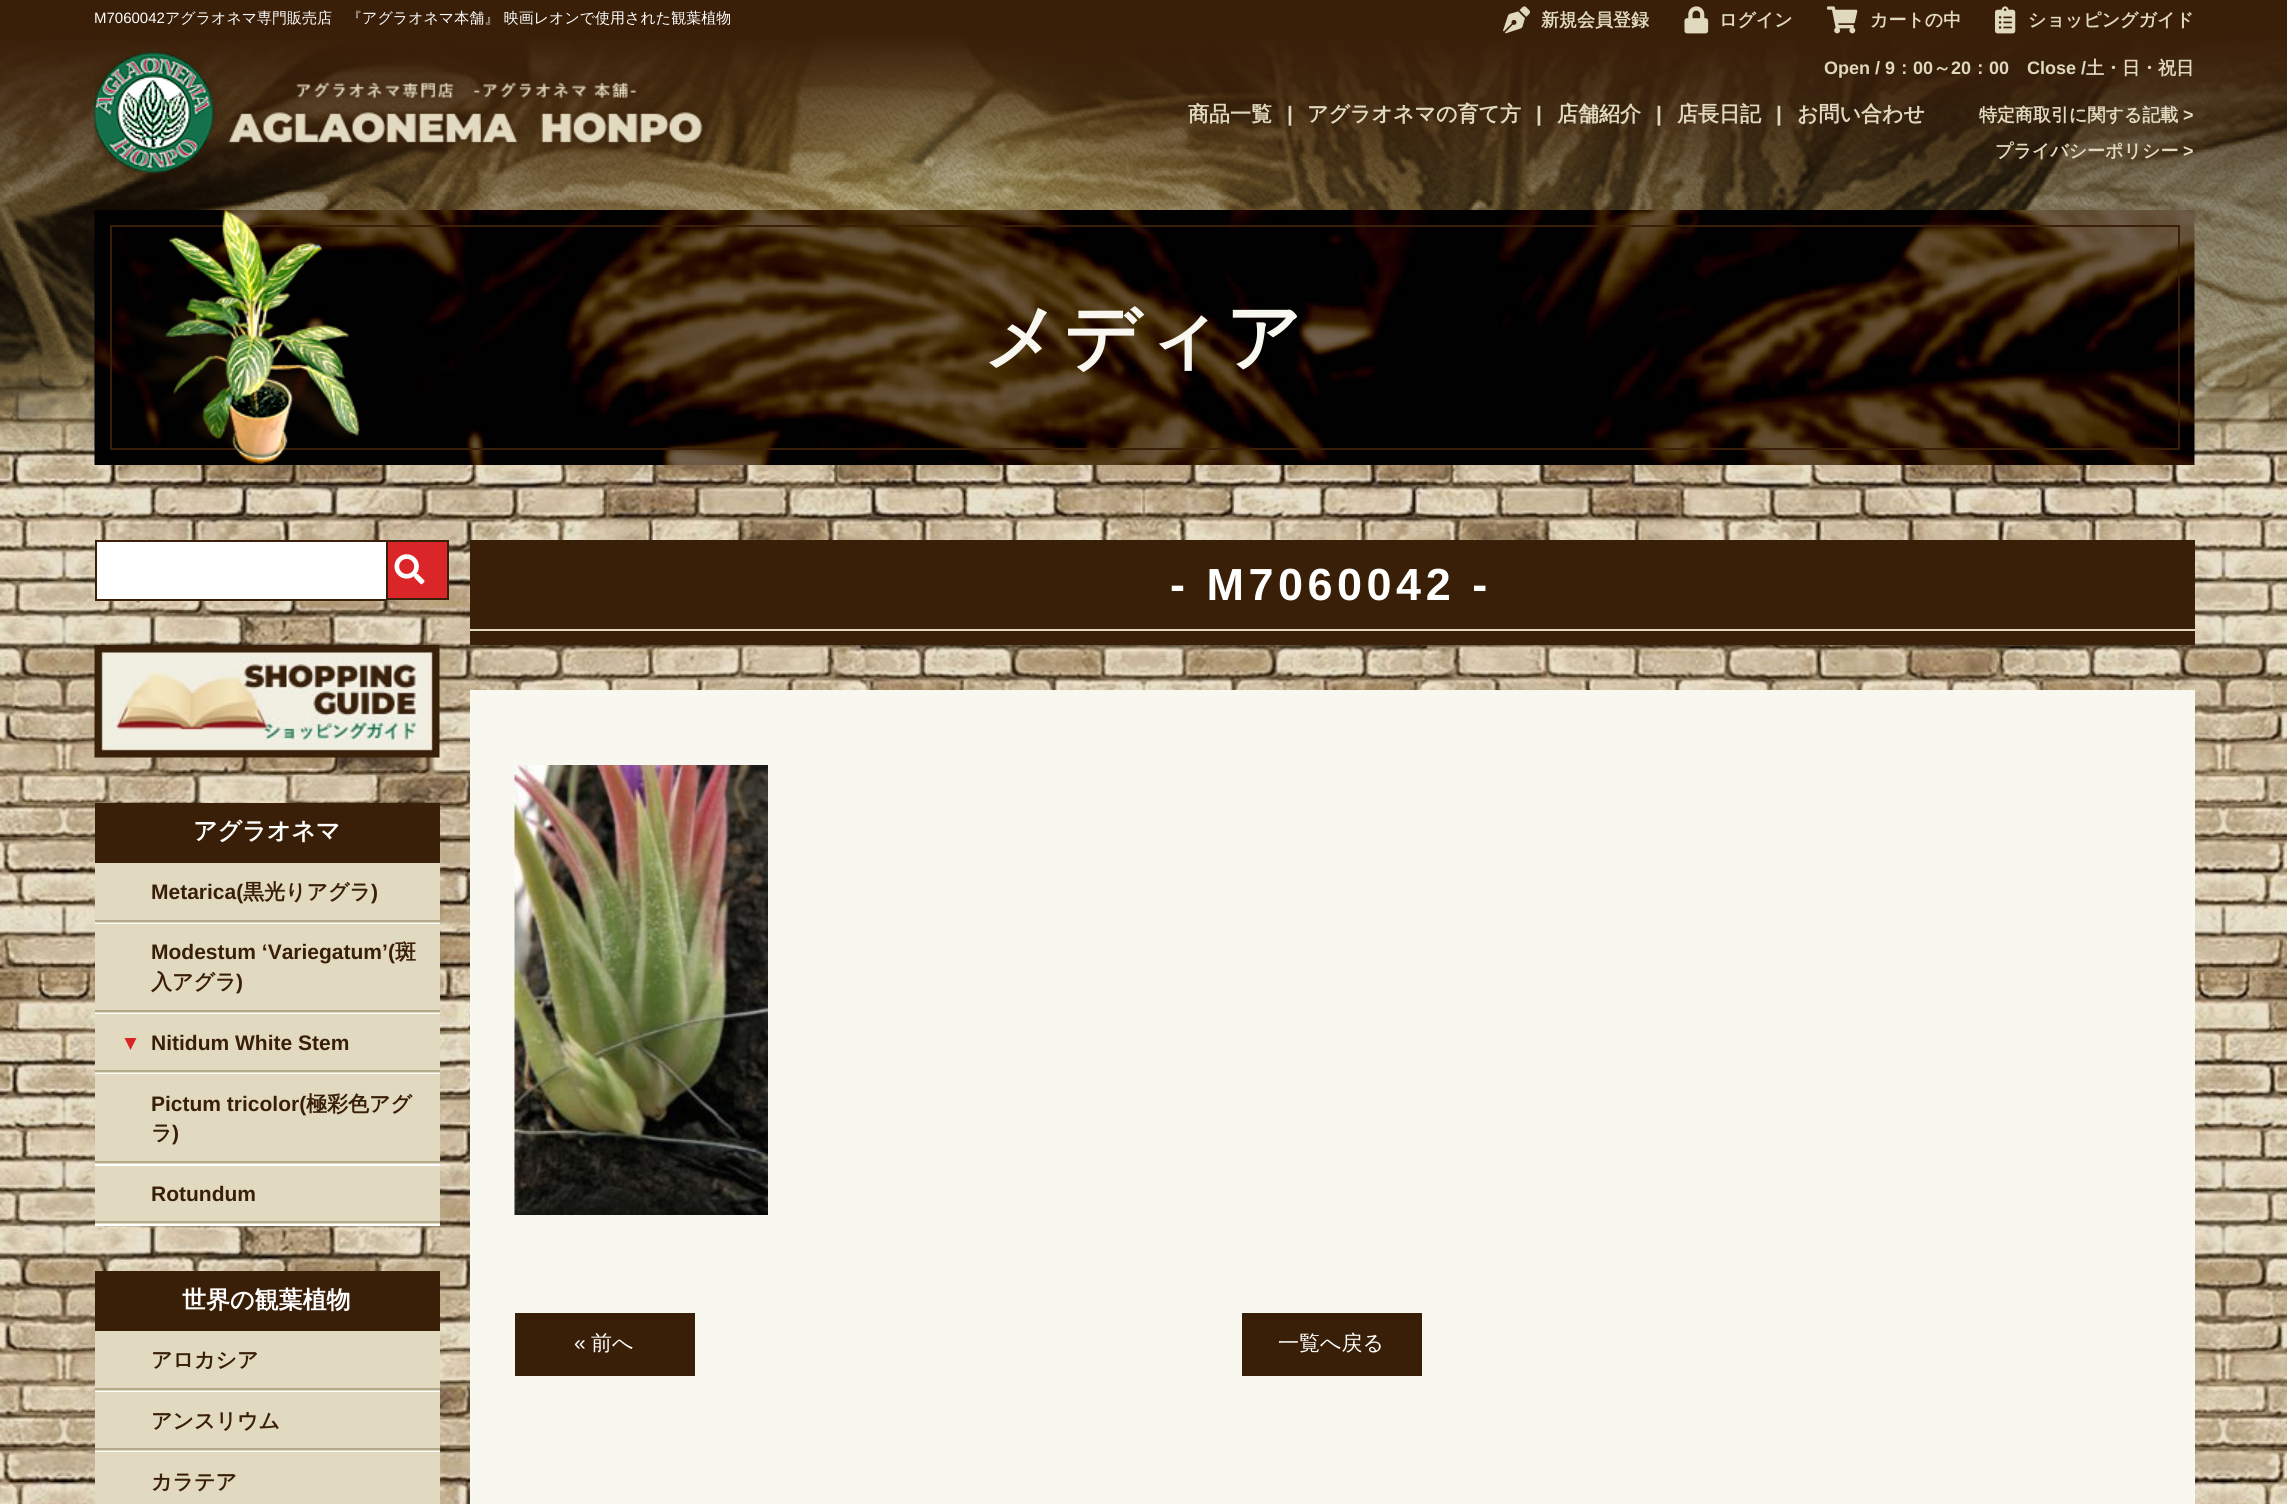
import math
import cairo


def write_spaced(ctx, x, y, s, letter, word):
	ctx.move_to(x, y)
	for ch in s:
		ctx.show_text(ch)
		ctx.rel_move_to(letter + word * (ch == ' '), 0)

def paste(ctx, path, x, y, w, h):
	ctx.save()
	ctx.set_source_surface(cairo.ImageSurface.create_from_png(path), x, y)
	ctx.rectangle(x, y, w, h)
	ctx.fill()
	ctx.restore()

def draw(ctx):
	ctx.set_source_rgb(1, 1, 1)
	ctx.paint()
	paste(ctx, 'media/1.png', 0, 345, 2287, 1159)
	ctx.set_source_rgb(0.227, 0.122, 0.035)
	ctx.rectangle(0, 0, 2287, 38)
	ctx.fill()
	ctx.select_font_face('Liberation Sans')
	ctx.set_font_size(15)
	ctx.set_source_rgb(1, 1, 1)
	ctx.move_to(94, 23)
	ctx.show_text('M7060042')
	ctx.select_font_face('WenQuanYi Zen Hei Medium')
	ctx.move_to(165, 23)
	ctx.show_text('アグラオネマ専門販売店　『アグラオネマ本舗』 映画レオンで使用された観葉植物')
	paste(ctx, 'media/2.png', 1503, 6, 27, 28)
	ctx.select_font_face('WenQuanYi Zen Hei', cairo.FONT_SLANT_NORMAL, cairo.FONT_WEIGHT_BOLD)
	ctx.set_font_size(18)
	ctx.set_source_rgb(0.882, 0.851, 0.749)
	ctx.move_to(1541, 26)
	ctx.show_text('新規会員登録')
	paste(ctx, 'media/3.png', 1684, 6, 25, 28)
	ctx.move_to(1719, 26)
	ctx.show_text('ログイン')
	paste(ctx, 'media/4.png', 1827, 6, 31, 28)
	ctx.move_to(1870, 26)
	ctx.show_text('カートの中')
	paste(ctx, 'media/5.png', 1995, 6, 21, 28)
	ctx.move_to(2028, 26)
	ctx.show_text('ショッピングガイド')
	paste(ctx, 'media/7.png', 0, 38, 2287, 424)
	paste(ctx, 'media/6.png', 94, 52, 614, 129)
	ctx.select_font_face('Liberation Sans', cairo.FONT_SLANT_NORMAL, cairo.FONT_WEIGHT_BOLD)
	ctx.move_to(1824, 74)
	ctx.show_text('Open / 9')
	ctx.select_font_face('WenQuanYi Zen Hei', cairo.FONT_SLANT_NORMAL, cairo.FONT_WEIGHT_BOLD)
	ctx.move_to(1895, 74)
	ctx.show_text('：')
	ctx.select_font_face('Liberation Sans', cairo.FONT_SLANT_NORMAL, cairo.FONT_WEIGHT_BOLD)
	ctx.move_to(1913, 74)
	ctx.show_text('00')
	ctx.select_font_face('WenQuanYi Zen Hei', cairo.FONT_SLANT_NORMAL, cairo.FONT_WEIGHT_BOLD)
	ctx.move_to(1933, 74)
	ctx.show_text('～')
	ctx.select_font_face('Liberation Sans', cairo.FONT_SLANT_NORMAL, cairo.FONT_WEIGHT_BOLD)
	ctx.move_to(1951, 74)
	ctx.show_text('20')
	ctx.select_font_face('WenQuanYi Zen Hei', cairo.FONT_SLANT_NORMAL, cairo.FONT_WEIGHT_BOLD)
	ctx.move_to(1971, 74)
	ctx.show_text('：')
	ctx.select_font_face('Liberation Sans', cairo.FONT_SLANT_NORMAL, cairo.FONT_WEIGHT_BOLD)
	ctx.move_to(1989, 74)
	ctx.show_text('00')
	ctx.move_to(2027, 74)
	ctx.show_text('Close /')
	ctx.select_font_face('WenQuanYi Zen Hei', cairo.FONT_SLANT_NORMAL, cairo.FONT_WEIGHT_BOLD)
	ctx.move_to(2086, 74)
	ctx.show_text('土・日・祝日')
	ctx.set_font_size(21)
	ctx.move_to(1188, 121)
	ctx.show_text('商品一覧')
	ctx.select_font_face('Liberation Sans', cairo.FONT_SLANT_NORMAL, cairo.FONT_WEIGHT_BOLD)
	ctx.move_to(1287, 121)
	ctx.show_text('|')
	ctx.select_font_face('WenQuanYi Zen Hei', cairo.FONT_SLANT_NORMAL, cairo.FONT_WEIGHT_BOLD)
	ctx.move_to(1307, 121)
	ctx.show_text('アグラオネマの育て方')
	ctx.select_font_face('Liberation Sans', cairo.FONT_SLANT_NORMAL, cairo.FONT_WEIGHT_BOLD)
	ctx.move_to(1536, 121)
	ctx.show_text('|')
	ctx.select_font_face('WenQuanYi Zen Hei', cairo.FONT_SLANT_NORMAL, cairo.FONT_WEIGHT_BOLD)
	ctx.move_to(1557, 121)
	ctx.show_text('店舗紹介')
	ctx.select_font_face('Liberation Sans', cairo.FONT_SLANT_NORMAL, cairo.FONT_WEIGHT_BOLD)
	ctx.move_to(1656, 121)
	ctx.show_text('|')
	ctx.select_font_face('WenQuanYi Zen Hei', cairo.FONT_SLANT_NORMAL, cairo.FONT_WEIGHT_BOLD)
	ctx.move_to(1677, 121)
	ctx.show_text('店長日記')
	ctx.select_font_face('Liberation Sans', cairo.FONT_SLANT_NORMAL, cairo.FONT_WEIGHT_BOLD)
	ctx.move_to(1776, 121)
	ctx.show_text('|')
	ctx.select_font_face('WenQuanYi Zen Hei', cairo.FONT_SLANT_NORMAL, cairo.FONT_WEIGHT_BOLD)
	ctx.move_to(1797, 121)
	ctx.show_text('お問い合わせ')
	ctx.set_font_size(18)
	ctx.move_to(1979, 121)
	ctx.show_text('特定商取引に関する記載')
	ctx.select_font_face('Liberation Sans', cairo.FONT_SLANT_NORMAL, cairo.FONT_WEIGHT_BOLD)
	ctx.move_to(2183, 121)
	ctx.show_text('>')
	ctx.select_font_face('WenQuanYi Zen Hei', cairo.FONT_SLANT_NORMAL, cairo.FONT_WEIGHT_BOLD)
	ctx.move_to(1995, 157)
	ctx.show_text('プライバシーポリシー')
	ctx.select_font_face('Liberation Sans', cairo.FONT_SLANT_NORMAL, cairo.FONT_WEIGHT_BOLD)
	ctx.move_to(2183, 157)
	ctx.show_text('>')
	paste(ctx, 'media/8.png', 94, 210, 2101, 255)
	ctx.rectangle(111, 226, 2068, 223)
	ctx.set_source_rgb(0.227, 0.122, 0.035)
	ctx.stroke()
	paste(ctx, 'media/9.png', 127, 210, 234, 254)
	ctx.select_font_face('WenQuanYi Zen Hei', cairo.FONT_SLANT_NORMAL, cairo.FONT_WEIGHT_BOLD)
	ctx.set_font_size(75)
	ctx.set_source_rgb(0.976, 0.969, 0.941)
	write_spaced(ctx, 983, 363, 'メディア', 4, 0)
	ctx.set_source_rgb(1, 1, 1)
	ctx.rectangle(97, 542, 289, 57)
	ctx.fill()
	ctx.set_source_rgb(0.227, 0.122, 0.035)
	ctx.rectangle(95, 540, 291, 2)
	ctx.rectangle(95, 599, 291, 2)
	ctx.rectangle(95, 540, 2, 60)
	ctx.fill()
	ctx.set_source_rgb(0.855, 0.145, 0.161)
	ctx.rectangle(387, 541, 61, 58)
	ctx.fill_preserve()
	ctx.set_source_rgb(0.227, 0.122, 0.035)
	ctx.stroke()
	paste(ctx, 'media/10.png', 394, 554, 31, 31)
	paste(ctx, 'media/11.png', 94, 645, 346, 113)
	ctx.rectangle(95, 803, 345, 60)
	ctx.fill()
	ctx.set_font_size(24)
	ctx.set_source_rgb(1, 1, 1)
	ctx.move_to(193, 839)
	ctx.show_text('アグラオネマ')
	ctx.set_source_rgb(0.886, 0.855, 0.753)
	ctx.rectangle(95, 863, 345, 60)
	ctx.fill()
	ctx.set_source_rgb(1, 1, 1)
	ctx.rectangle(95, 923, 345, 1)
	ctx.fill()
	ctx.select_font_face('Liberation Sans', cairo.FONT_SLANT_NORMAL, cairo.FONT_WEIGHT_BOLD)
	ctx.set_font_size(21)
	ctx.set_source_rgb(0.227, 0.122, 0.035)
	ctx.move_to(151, 899)
	ctx.show_text('Metarica(')
	ctx.select_font_face('WenQuanYi Zen Hei', cairo.FONT_SLANT_NORMAL, cairo.FONT_WEIGHT_BOLD)
	ctx.move_to(243, 899)
	ctx.show_text('黒光りアグラ')
	ctx.select_font_face('Liberation Sans', cairo.FONT_SLANT_NORMAL, cairo.FONT_WEIGHT_BOLD)
	ctx.move_to(371, 899)
	ctx.show_text(')')
	ctx.set_source_rgb(0.706, 0.667, 0.545)
	ctx.rectangle(95, 920, 345, 2)
	ctx.fill()
	ctx.set_source_rgb(0.886, 0.855, 0.753)
	ctx.rectangle(95, 924, 345, 89)
	ctx.fill()
	ctx.set_source_rgb(1, 1, 1)
	ctx.rectangle(95, 1013, 345, 1)
	ctx.fill()
	ctx.set_source_rgb(0.227, 0.122, 0.035)
	ctx.move_to(151, 959)
	ctx.show_text('Modestum ‘Variegatum’(')
	ctx.select_font_face('WenQuanYi Zen Hei', cairo.FONT_SLANT_NORMAL, cairo.FONT_WEIGHT_BOLD)
	ctx.move_to(395, 959)
	ctx.show_text('斑')
	ctx.move_to(151, 989)
	ctx.show_text('入アグラ')
	ctx.select_font_face('Liberation Sans', cairo.FONT_SLANT_NORMAL, cairo.FONT_WEIGHT_BOLD)
	ctx.move_to(236, 989)
	ctx.show_text(')')
	ctx.set_source_rgb(0.706, 0.667, 0.545)
	ctx.rectangle(95, 1010, 345, 2)
	ctx.fill()
	ctx.set_source_rgb(0.886, 0.855, 0.753)
	ctx.rectangle(95, 1014, 345, 59)
	ctx.fill()
	ctx.set_source_rgb(1, 1, 1)
	ctx.rectangle(95, 1073, 345, 1)
	ctx.fill()
	ctx.set_source_rgb(0.855, 0.145, 0.157)
	ctx.new_path()
	ctx.move_to(124.5, 1038)
	ctx.line_to(136.5, 1038)
	ctx.line_to(130.5, 1050)
	ctx.close_path()
	ctx.fill()
	ctx.set_source_rgb(0.227, 0.122, 0.035)
	ctx.move_to(151, 1050)
	ctx.show_text('Nitidum White Stem')
	ctx.set_source_rgb(0.706, 0.667, 0.545)
	ctx.rectangle(95, 1070, 345, 2)
	ctx.fill()
	ctx.set_source_rgb(0.886, 0.855, 0.753)
	ctx.rectangle(95, 1074, 345, 90)
	ctx.fill()
	ctx.set_source_rgb(1, 1, 1)
	ctx.rectangle(95, 1164, 345, 2)
	ctx.fill()
	ctx.set_source_rgb(0.227, 0.122, 0.035)
	ctx.move_to(151, 1111)
	ctx.show_text('Pictum tricolor(')
	ctx.select_font_face('WenQuanYi Zen Hei', cairo.FONT_SLANT_NORMAL, cairo.FONT_WEIGHT_BOLD)
	ctx.move_to(306, 1111)
	ctx.show_text('極彩色アグ')
	ctx.move_to(151, 1140)
	ctx.show_text('ラ')
	ctx.select_font_face('Liberation Sans', cairo.FONT_SLANT_NORMAL, cairo.FONT_WEIGHT_BOLD)
	ctx.move_to(172, 1140)
	ctx.show_text(')')
	ctx.set_source_rgb(0.706, 0.667, 0.545)
	ctx.rectangle(95, 1161, 345, 2)
	ctx.fill()
	ctx.set_source_rgb(0.886, 0.855, 0.753)
	ctx.rectangle(95, 1166, 345, 58)
	ctx.fill()
	ctx.set_source_rgb(1, 1, 1)
	ctx.rectangle(95, 1224, 345, 2)
	ctx.fill()
	ctx.set_source_rgb(0.227, 0.122, 0.035)
	ctx.move_to(151, 1201)
	ctx.show_text('Rotundum')
	ctx.set_source_rgb(0.706, 0.667, 0.545)
	ctx.rectangle(95, 1221, 345, 2)
	ctx.fill()
	ctx.set_source_rgb(0.227, 0.122, 0.035)
	ctx.rectangle(95, 1271, 345, 60)
	ctx.fill()
	ctx.select_font_face('WenQuanYi Zen Hei', cairo.FONT_SLANT_NORMAL, cairo.FONT_WEIGHT_BOLD)
	ctx.set_font_size(24)
	ctx.set_source_rgb(1, 1, 1)
	ctx.move_to(182, 1308)
	ctx.show_text('世界の観葉植物')
	ctx.set_source_rgb(0.886, 0.855, 0.753)
	ctx.rectangle(95, 1331, 345, 60)
	ctx.fill()
	ctx.set_source_rgb(1, 1, 1)
	ctx.rectangle(95, 1391, 345, 1)
	ctx.fill()
	ctx.set_font_size(21)
	ctx.set_source_rgb(0.227, 0.122, 0.035)
	ctx.move_to(151, 1367)
	ctx.show_text('アロカシア')
	ctx.set_source_rgb(0.706, 0.667, 0.545)
	ctx.rectangle(95, 1388, 345, 2)
	ctx.fill()
	ctx.set_source_rgb(0.886, 0.855, 0.753)
	ctx.rectangle(95, 1392, 345, 59)
	ctx.fill()
	ctx.set_source_rgb(1, 1, 1)
	ctx.rectangle(95, 1451, 345, 1)
	ctx.fill()
	ctx.set_source_rgb(0.227, 0.122, 0.035)
	ctx.move_to(151, 1428)
	ctx.show_text('アンスリウム')
	ctx.set_source_rgb(0.706, 0.667, 0.545)
	ctx.rectangle(95, 1448, 345, 2)
	ctx.fill()
	ctx.set_source_rgb(0.886, 0.855, 0.753)
	ctx.rectangle(95, 1452, 345, 52)
	ctx.fill()
	ctx.set_source_rgb(0.227, 0.122, 0.035)
	ctx.move_to(151, 1489)
	ctx.show_text('カラテア')
	ctx.rectangle(470, 540, 1725, 105)
	ctx.fill()
	ctx.select_font_face('Liberation Sans', cairo.FONT_SLANT_NORMAL, cairo.FONT_WEIGHT_BOLD)
	ctx.set_font_size(45)
	ctx.set_source_rgb(1, 1, 1)
	write_spaced(ctx, 1170, 600, '- M7060042 -', 4.5, 0)
	ctx.set_source_rgb(0.886, 0.855, 0.753)
	ctx.rectangle(470, 629, 1725, 2)
	ctx.fill()
	ctx.set_source_rgb(0.976, 0.969, 0.941)
	ctx.rectangle(470, 690, 1725, 814)
	ctx.fill()
	paste(ctx, 'media/12.png', 514, 765, 254, 450)
	ctx.set_source_rgb(0.227, 0.122, 0.035)
	ctx.rectangle(515, 1313, 180, 63)
	ctx.fill()
	ctx.select_font_face('Liberation Sans')
	ctx.set_font_size(21)
	ctx.set_source_rgb(1, 1, 1)
	ctx.move_to(574, 1350)
	ctx.show_text('«')
	ctx.select_font_face('WenQuanYi Zen Hei Medium')
	ctx.move_to(591, 1350)
	ctx.show_text('前へ')
	ctx.set_source_rgb(0.227, 0.122, 0.035)
	ctx.rectangle(1242, 1313, 180, 63)
	ctx.fill()
	ctx.set_source_rgb(1, 1, 1)
	ctx.move_to(1278, 1350)
	ctx.show_text('一覧へ戻る')


surface = cairo.ImageSurface(cairo.FORMAT_RGB24, 2287, 1504)
ctx = cairo.Context(surface)
options = cairo.FontOptions()
options.set_hint_metrics(cairo.HINT_METRICS_OFF)
options.set_hint_style(cairo.HINT_STYLE_NONE)
ctx.set_font_options(options)
ctx.set_miter_limit(4)
draw(ctx)
surface.write_to_png('image.png')
